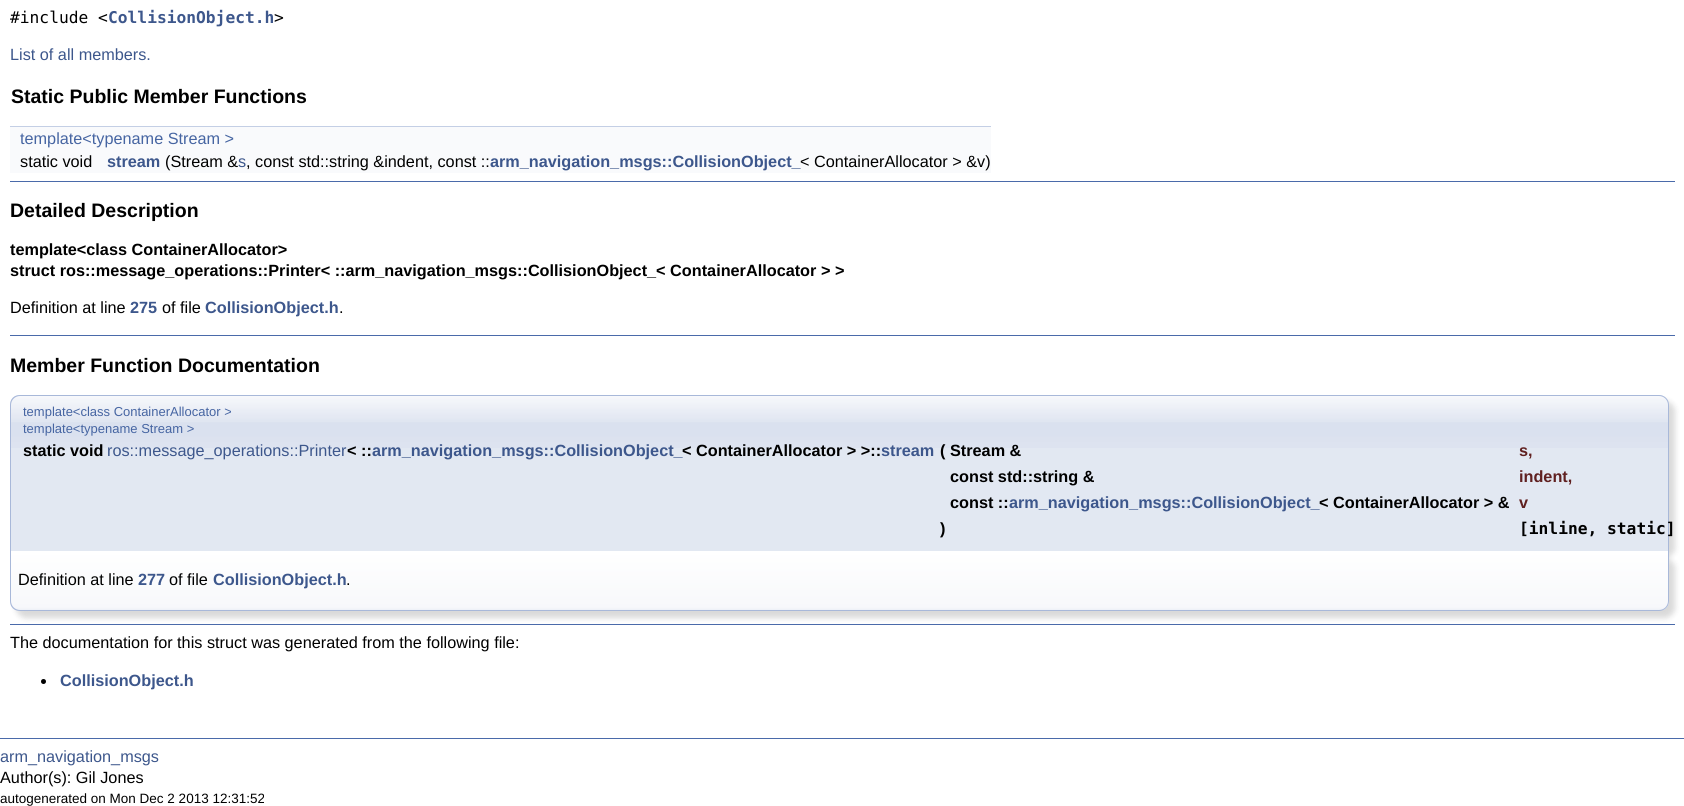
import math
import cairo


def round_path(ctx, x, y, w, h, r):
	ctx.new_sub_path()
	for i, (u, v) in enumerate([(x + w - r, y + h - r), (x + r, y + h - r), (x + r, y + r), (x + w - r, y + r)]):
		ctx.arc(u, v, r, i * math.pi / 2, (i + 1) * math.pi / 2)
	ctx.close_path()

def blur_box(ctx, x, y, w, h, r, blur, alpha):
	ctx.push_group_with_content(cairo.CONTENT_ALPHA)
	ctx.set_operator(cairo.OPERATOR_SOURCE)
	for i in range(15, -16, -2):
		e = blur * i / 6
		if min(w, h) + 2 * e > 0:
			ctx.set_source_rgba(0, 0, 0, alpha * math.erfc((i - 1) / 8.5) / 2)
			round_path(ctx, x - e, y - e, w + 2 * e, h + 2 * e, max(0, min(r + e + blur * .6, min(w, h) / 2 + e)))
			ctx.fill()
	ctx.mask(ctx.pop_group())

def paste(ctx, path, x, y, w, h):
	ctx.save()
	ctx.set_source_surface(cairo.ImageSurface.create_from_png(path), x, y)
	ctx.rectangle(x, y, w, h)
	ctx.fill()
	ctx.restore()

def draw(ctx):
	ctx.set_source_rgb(1, 1, 1)
	ctx.paint()
	ctx.select_font_face('DejaVu Sans Mono')
	ctx.set_font_size(16.25)
	ctx.set_source_rgb(0, 0, 0)
	ctx.move_to(10, 23)
	ctx.show_text('#include <')
	ctx.select_font_face('DejaVu Sans Mono', cairo.FONT_SLANT_NORMAL, cairo.FONT_WEIGHT_BOLD)
	ctx.set_source_rgb(0.239, 0.341, 0.549)
	ctx.move_to(108, 23)
	ctx.show_text('CollisionObject.h')
	ctx.select_font_face('DejaVu Sans Mono')
	ctx.set_source_rgb(0, 0, 0)
	ctx.move_to(274, 23)
	ctx.show_text('>')
	ctx.select_font_face('Liberation Sans')
	ctx.set_source_rgb(0.239, 0.341, 0.549)
	ctx.move_to(10, 60)
	ctx.show_text('List of all members.')
	ctx.select_font_face('Liberation Sans', cairo.FONT_SLANT_NORMAL, cairo.FONT_WEIGHT_BOLD)
	ctx.set_font_size(19.5)
	ctx.set_source_rgb(0, 0, 0)
	ctx.move_to(11, 103)
	ctx.show_text('Static Public Member Functions')
	ctx.set_source_rgb(0.976, 0.98, 0.988)
	ctx.rectangle(10, 127, 981, 23)
	ctx.fill()
	ctx.set_source_rgb(0.769, 0.812, 0.898)
	ctx.rectangle(10, 126, 981, 1)
	ctx.fill()
	ctx.select_font_face('Liberation Sans')
	ctx.set_font_size(16.25)
	ctx.set_source_rgb(0.275, 0.396, 0.635)
	ctx.move_to(20, 144)
	ctx.show_text('template<typename Stream >')
	ctx.set_source_rgb(0.976, 0.98, 0.988)
	ctx.rectangle(10, 150, 981, 23)
	ctx.fill()
	ctx.set_source_rgb(0, 0, 0)
	ctx.move_to(20, 167)
	ctx.show_text('static void')
	ctx.select_font_face('Liberation Sans', cairo.FONT_SLANT_NORMAL, cairo.FONT_WEIGHT_BOLD)
	ctx.set_source_rgb(0.239, 0.341, 0.549)
	ctx.move_to(107, 167)
	ctx.show_text('stream')
	ctx.select_font_face('Liberation Sans')
	ctx.set_source_rgb(0, 0, 0)
	ctx.move_to(165, 167)
	ctx.show_text('(Stream &')
	ctx.set_source_rgb(0.239, 0.341, 0.549)
	ctx.move_to(238, 167)
	ctx.show_text('s')
	ctx.set_source_rgb(0, 0, 0)
	ctx.move_to(246, 167)
	ctx.show_text(', const std::string &indent, const ::')
	ctx.select_font_face('Liberation Sans', cairo.FONT_SLANT_NORMAL, cairo.FONT_WEIGHT_BOLD)
	ctx.set_source_rgb(0.239, 0.341, 0.549)
	ctx.move_to(490, 167)
	ctx.show_text('arm_navigation_msgs::CollisionObject_')
	ctx.select_font_face('Liberation Sans')
	ctx.set_source_rgb(0, 0, 0)
	ctx.move_to(800, 167)
	ctx.show_text('< ContainerAllocator > &v)')
	ctx.set_source_rgb(0.29, 0.416, 0.667)
	ctx.rectangle(10, 181, 1665, 1)
	ctx.fill()
	ctx.select_font_face('Liberation Sans', cairo.FONT_SLANT_NORMAL, cairo.FONT_WEIGHT_BOLD)
	ctx.set_font_size(19.5)
	ctx.set_source_rgb(0, 0, 0)
	ctx.move_to(10, 217)
	ctx.show_text('Detailed Description')
	ctx.set_font_size(16.25)
	ctx.move_to(10, 255)
	ctx.show_text('template<class ContainerAllocator>')
	ctx.move_to(10, 276)
	ctx.show_text('struct ros::message_operations::Printer< ::arm_navigation_msgs::CollisionObject_< ContainerAllocator > >')
	ctx.select_font_face('Liberation Sans')
	ctx.move_to(10, 313)
	ctx.show_text('Definition at line')
	ctx.select_font_face('Liberation Sans', cairo.FONT_SLANT_NORMAL, cairo.FONT_WEIGHT_BOLD)
	ctx.set_source_rgb(0.239, 0.341, 0.549)
	ctx.move_to(130, 313)
	ctx.show_text('275')
	ctx.select_font_face('Liberation Sans')
	ctx.set_source_rgb(0, 0, 0)
	ctx.move_to(162, 313)
	ctx.show_text('of file')
	ctx.select_font_face('Liberation Sans', cairo.FONT_SLANT_NORMAL, cairo.FONT_WEIGHT_BOLD)
	ctx.set_source_rgb(0.239, 0.341, 0.549)
	ctx.move_to(205, 313)
	ctx.show_text('CollisionObject.h')
	ctx.select_font_face('Liberation Sans')
	ctx.set_source_rgb(0, 0, 0)
	ctx.move_to(339, 313)
	ctx.show_text('.')
	ctx.set_source_rgb(0.29, 0.416, 0.667)
	ctx.rectangle(10, 335, 1665, 1)
	ctx.fill()
	ctx.select_font_face('Liberation Sans', cairo.FONT_SLANT_NORMAL, cairo.FONT_WEIGHT_BOLD)
	ctx.set_font_size(19.5)
	ctx.set_source_rgb(0, 0, 0)
	ctx.move_to(10, 372)
	ctx.show_text('Member Function Documentation')
	ctx.set_source_rgb(0, 0, 0)
	blur_box(ctx, 16, 401, 1659, 157, 10, 3, 0.15)
	ctx.set_source_rgb(0.886, 0.91, 0.949)
	ctx.new_path()
	ctx.move_to(20, 395)
	ctx.line_to(1659, 395)
	ctx.curve_to(1664.5, 395, 1669, 399.5, 1669, 405)
	ctx.line_to(1669, 551)
	ctx.line_to(10, 551)
	ctx.line_to(10, 405)
	ctx.curve_to(10, 399.5, 14.5, 395, 20, 395)
	ctx.close_path()
	ctx.fill()
	paste(ctx, 'media/1.png', 10, 396, 1659, 52)
	ctx.set_source_rgb(0.659, 0.722, 0.851)
	ctx.set_fill_rule(cairo.FILL_RULE_EVEN_ODD)
	ctx.new_path()
	ctx.move_to(20, 395)
	ctx.line_to(1659, 395)
	ctx.curve_to(1664, 395, 1669, 399, 1669, 405)
	ctx.line_to(1669, 551)
	ctx.line_to(10, 551)
	ctx.line_to(10, 405)
	ctx.curve_to(10, 399, 14, 395, 20, 395)
	ctx.close_path()
	ctx.move_to(20, 396)
	ctx.line_to(1659, 396)
	ctx.curve_to(1664, 396, 1668, 400, 1668, 405)
	ctx.line_to(1668, 551)
	ctx.line_to(11, 551)
	ctx.line_to(11, 405)
	ctx.curve_to(11, 400, 15, 396, 20, 396)
	ctx.close_path()
	ctx.fill()
	ctx.select_font_face('Liberation Sans')
	ctx.set_font_size(13)
	ctx.set_source_rgb(0.275, 0.396, 0.635)
	ctx.move_to(23, 416)
	ctx.show_text('template<class ContainerAllocator >')
	ctx.move_to(23, 433)
	ctx.show_text('template<typename Stream >')
	ctx.select_font_face('Liberation Sans', cairo.FONT_SLANT_NORMAL, cairo.FONT_WEIGHT_BOLD)
	ctx.set_font_size(16.25)
	ctx.set_source_rgb(0, 0, 0)
	ctx.move_to(23, 456)
	ctx.show_text('static void')
	ctx.select_font_face('Liberation Sans')
	ctx.set_source_rgb(0.239, 0.341, 0.549)
	ctx.move_to(107, 456)
	ctx.show_text('ros::message_operations::Printer')
	ctx.select_font_face('Liberation Sans', cairo.FONT_SLANT_NORMAL, cairo.FONT_WEIGHT_BOLD)
	ctx.set_source_rgb(0, 0, 0)
	ctx.move_to(347, 456)
	ctx.show_text('< ::')
	ctx.set_source_rgb(0.239, 0.341, 0.549)
	ctx.move_to(372, 456)
	ctx.show_text('arm_navigation_msgs::CollisionObject_')
	ctx.set_source_rgb(0, 0, 0)
	ctx.move_to(682, 456)
	ctx.show_text('< ContainerAllocator > >::')
	ctx.set_source_rgb(0.239, 0.341, 0.549)
	ctx.move_to(881, 456)
	ctx.show_text('stream')
	ctx.set_source_rgb(0, 0, 0)
	ctx.move_to(940, 456)
	ctx.show_text('(')
	ctx.move_to(950, 456)
	ctx.show_text('Stream &')
	ctx.set_source_rgb(0.376, 0.125, 0.125)
	ctx.move_to(1519, 456)
	ctx.show_text('s,')
	ctx.set_source_rgb(0, 0, 0)
	ctx.move_to(950, 482)
	ctx.show_text('const std::string &')
	ctx.set_source_rgb(0.376, 0.125, 0.125)
	ctx.move_to(1519, 482)
	ctx.show_text('indent,')
	ctx.set_source_rgb(0, 0, 0)
	ctx.move_to(950, 508)
	ctx.show_text('const ::')
	ctx.set_source_rgb(0.239, 0.341, 0.549)
	ctx.move_to(1009, 508)
	ctx.show_text('arm_navigation_msgs::CollisionObject_')
	ctx.set_source_rgb(0, 0, 0)
	ctx.move_to(1319, 508)
	ctx.show_text('< ContainerAllocator > &')
	ctx.set_source_rgb(0.376, 0.125, 0.125)
	ctx.move_to(1519, 508)
	ctx.show_text('v')
	ctx.set_source_rgb(0, 0, 0)
	ctx.move_to(940, 534)
	ctx.show_text(')')
	ctx.select_font_face('DejaVu Sans Mono', cairo.FONT_SLANT_NORMAL, cairo.FONT_WEIGHT_BOLD)
	ctx.move_to(1519, 534)
	ctx.show_text('[inline, static]')
	ctx.set_source_rgb(0, 0, 0)
	blur_box(ctx, 16, 558, 1659, 60, 10, 3, 0.15)
	ctx.save()
	ctx.set_fill_rule(cairo.FILL_RULE_WINDING)
	ctx.new_path()
	ctx.move_to(10, 551)
	ctx.line_to(1669, 551)
	ctx.line_to(1669, 601)
	ctx.curve_to(1669, 606.5, 1664.5, 611, 1659, 611)
	ctx.line_to(20, 611)
	ctx.curve_to(14.5, 611, 10, 606.5, 10, 601)
	ctx.close_path()
	ctx.clip()
	gradient = cairo.LinearGradient(839, 551, 839, 610)
	gradient.add_color_stop_rgba(0, 1, 1, 1, 1)
	gradient.add_color_stop_rgba(0.95, 0.969, 0.973, 0.984, 1)
	gradient.add_color_stop_rgba(1, 0.933, 0.945, 0.969, 1)
	ctx.set_source(gradient)
	ctx.rectangle(10, 551, 1659, 59)
	ctx.fill()
	ctx.restore()
	ctx.set_source_rgb(0.659, 0.722, 0.851)
	ctx.new_path()
	ctx.move_to(10, 551)
	ctx.line_to(1669, 551)
	ctx.line_to(1669, 601)
	ctx.curve_to(1669, 607, 1664, 611, 1659, 611)
	ctx.line_to(20, 611)
	ctx.curve_to(14, 611, 10, 607, 10, 601)
	ctx.close_path()
	ctx.move_to(11, 551)
	ctx.line_to(1668, 551)
	ctx.line_to(1668, 601)
	ctx.curve_to(1668, 606, 1664, 610, 1659, 610)
	ctx.line_to(20, 610)
	ctx.curve_to(15, 610, 11, 606, 11, 601)
	ctx.close_path()
	ctx.fill()
	ctx.select_font_face('Liberation Sans')
	ctx.set_source_rgb(0, 0, 0)
	ctx.move_to(18, 585)
	ctx.show_text('Definition at line')
	ctx.select_font_face('Liberation Sans', cairo.FONT_SLANT_NORMAL, cairo.FONT_WEIGHT_BOLD)
	ctx.set_source_rgb(0.239, 0.341, 0.549)
	ctx.move_to(138, 585)
	ctx.show_text('277')
	ctx.select_font_face('Liberation Sans')
	ctx.set_source_rgb(0, 0, 0)
	ctx.move_to(169, 585)
	ctx.show_text('of file')
	ctx.select_font_face('Liberation Sans', cairo.FONT_SLANT_NORMAL, cairo.FONT_WEIGHT_BOLD)
	ctx.set_source_rgb(0.239, 0.341, 0.549)
	ctx.move_to(213, 585)
	ctx.show_text('CollisionObject.h')
	ctx.select_font_face('Liberation Sans')
	ctx.set_source_rgb(0, 0, 0)
	ctx.move_to(346, 585)
	ctx.show_text('.')
	ctx.set_source_rgb(0.29, 0.416, 0.667)
	ctx.rectangle(10, 624, 1665, 1)
	ctx.fill()
	ctx.set_source_rgb(0, 0, 0)
	ctx.move_to(10, 648)
	ctx.show_text('The documentation for this struct was generated from the following file:')
	ctx.new_path()
	ctx.arc(43.5, 681.5, 2.5, 0, 2 * math.pi)
	ctx.fill()
	ctx.select_font_face('Liberation Sans', cairo.FONT_SLANT_NORMAL, cairo.FONT_WEIGHT_BOLD)
	ctx.set_source_rgb(0.239, 0.341, 0.549)
	ctx.move_to(60, 686)
	ctx.show_text('CollisionObject.h')
	ctx.set_source_rgb(0.29, 0.416, 0.667)
	ctx.rectangle(0, 738, 1684, 1)
	ctx.fill()
	ctx.select_font_face('Liberation Sans')
	ctx.set_source_rgb(0.239, 0.341, 0.549)
	ctx.move_to(0, 762)
	ctx.show_text('arm_navigation_msgs')
	ctx.set_source_rgb(0, 0, 0)
	ctx.move_to(0, 783)
	ctx.show_text('Author(s): Gil Jones')
	ctx.set_font_size(13.5)
	ctx.move_to(0, 803)
	ctx.show_text('autogenerated on Mon Dec 2 2013 12:31:52')


surface = cairo.ImageSurface(cairo.FORMAT_RGB24, 1684, 806)
ctx = cairo.Context(surface)
options = cairo.FontOptions()
options.set_hint_metrics(cairo.HINT_METRICS_OFF)
options.set_hint_style(cairo.HINT_STYLE_NONE)
ctx.set_font_options(options)
ctx.set_miter_limit(4)
draw(ctx)
surface.write_to_png('image.png')
